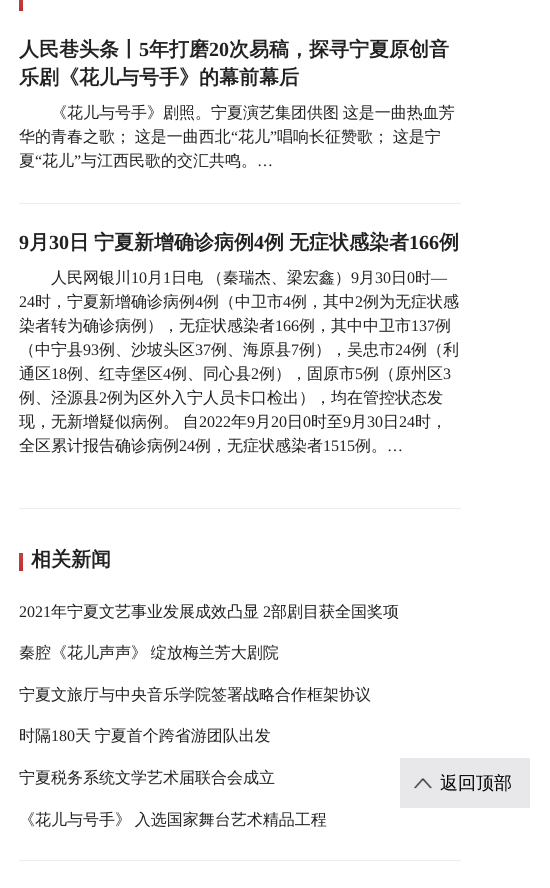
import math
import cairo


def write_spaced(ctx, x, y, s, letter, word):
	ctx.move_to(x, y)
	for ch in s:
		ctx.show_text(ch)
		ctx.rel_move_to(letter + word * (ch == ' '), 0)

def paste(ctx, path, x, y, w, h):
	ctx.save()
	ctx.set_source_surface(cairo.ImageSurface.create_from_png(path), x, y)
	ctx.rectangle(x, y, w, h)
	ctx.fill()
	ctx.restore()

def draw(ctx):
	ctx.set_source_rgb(1, 1, 1)
	ctx.paint()
	gradient = cairo.LinearGradient(16, -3.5, 27, 7.5)
	gradient.add_color_stop_rgba(0, 0.773, 0.239, 0.239, 1)
	gradient.add_color_stop_rgba(0.49, 0.769, 0.227, 0.227, 1)
	gradient.add_color_stop_rgba(1, 0.733, 0.176, 0.176, 1)
	ctx.set_source(gradient)
	ctx.rectangle(19, 0, 4, 11)
	ctx.fill()
	ctx.set_source_rgb(0.925, 0.925, 0.925)
	ctx.rectangle(19, 203, 442, 1)
	ctx.fill()
	ctx.select_font_face('WenQuanYi Zen Hei', cairo.FONT_SLANT_NORMAL, cairo.FONT_WEIGHT_BOLD)
	ctx.set_font_size(20)
	ctx.set_source_rgb(0.129, 0.129, 0.129)
	ctx.move_to(19, 56)
	ctx.show_text('人民巷头条丨')
	ctx.select_font_face('Liberation Serif', cairo.FONT_SLANT_NORMAL, cairo.FONT_WEIGHT_BOLD)
	ctx.move_to(139, 56)
	ctx.show_text('5')
	ctx.select_font_face('WenQuanYi Zen Hei', cairo.FONT_SLANT_NORMAL, cairo.FONT_WEIGHT_BOLD)
	ctx.move_to(149, 56)
	ctx.show_text('年打磨')
	ctx.select_font_face('Liberation Serif', cairo.FONT_SLANT_NORMAL, cairo.FONT_WEIGHT_BOLD)
	ctx.move_to(209, 56)
	ctx.show_text('20')
	ctx.select_font_face('WenQuanYi Zen Hei', cairo.FONT_SLANT_NORMAL, cairo.FONT_WEIGHT_BOLD)
	ctx.move_to(229, 56)
	ctx.show_text('次易稿，探寻宁夏原创音')
	ctx.move_to(19, 84)
	ctx.show_text('乐剧《花儿与号手》的幕前幕后')
	ctx.select_font_face('WenQuanYi Zen Hei Medium')
	ctx.set_font_size(16)
	write_spaced(ctx, 51, 118, '《花儿与号手》剧照。宁夏演艺集团供图 这是一曲热血芳', 0, -1)
	write_spaced(ctx, 19, 142, '华的青春之歌； 这是一曲西北', 0, -1)
	ctx.select_font_face('Liberation Serif')
	ctx.move_to(231, 142)
	ctx.show_text('“')
	ctx.select_font_face('WenQuanYi Zen Hei Medium')
	ctx.move_to(238, 142)
	ctx.show_text('花儿')
	ctx.select_font_face('Liberation Serif')
	ctx.move_to(270, 142)
	ctx.show_text('”')
	ctx.select_font_face('WenQuanYi Zen Hei Medium')
	write_spaced(ctx, 277, 142, '唱响长征赞歌； 这是宁', 0, -1)
	ctx.move_to(19, 166)
	ctx.show_text('夏')
	ctx.select_font_face('Liberation Serif')
	ctx.move_to(35, 166)
	ctx.show_text('“')
	ctx.select_font_face('WenQuanYi Zen Hei Medium')
	ctx.move_to(42, 166)
	ctx.show_text('花儿')
	ctx.select_font_face('Liberation Serif')
	ctx.move_to(74, 166)
	ctx.show_text('”')
	ctx.select_font_face('WenQuanYi Zen Hei Medium')
	ctx.move_to(81, 166)
	ctx.show_text('与江西民歌的交汇共鸣。')
	ctx.select_font_face('Liberation Serif')
	ctx.move_to(257, 166)
	ctx.show_text('…')
	ctx.select_font_face('Liberation Serif', cairo.FONT_SLANT_NORMAL, cairo.FONT_WEIGHT_BOLD)
	ctx.set_font_size(20)
	ctx.move_to(19, 249)
	ctx.show_text('9')
	ctx.select_font_face('WenQuanYi Zen Hei', cairo.FONT_SLANT_NORMAL, cairo.FONT_WEIGHT_BOLD)
	ctx.move_to(29, 249)
	ctx.show_text('月')
	ctx.select_font_face('Liberation Serif', cairo.FONT_SLANT_NORMAL, cairo.FONT_WEIGHT_BOLD)
	ctx.move_to(49, 249)
	ctx.show_text('30')
	ctx.select_font_face('WenQuanYi Zen Hei', cairo.FONT_SLANT_NORMAL, cairo.FONT_WEIGHT_BOLD)
	write_spaced(ctx, 69, 249, '日 宁夏新增确诊病例', 0, -1)
	ctx.select_font_face('Liberation Serif', cairo.FONT_SLANT_NORMAL, cairo.FONT_WEIGHT_BOLD)
	ctx.move_to(254, 249)
	ctx.show_text('4')
	ctx.select_font_face('WenQuanYi Zen Hei', cairo.FONT_SLANT_NORMAL, cairo.FONT_WEIGHT_BOLD)
	write_spaced(ctx, 264, 249, '例 无症状感染者', 0, -1)
	ctx.select_font_face('Liberation Serif', cairo.FONT_SLANT_NORMAL, cairo.FONT_WEIGHT_BOLD)
	ctx.move_to(409, 249)
	ctx.show_text('166')
	ctx.select_font_face('WenQuanYi Zen Hei', cairo.FONT_SLANT_NORMAL, cairo.FONT_WEIGHT_BOLD)
	ctx.move_to(439, 249)
	ctx.show_text('例')
	ctx.select_font_face('WenQuanYi Zen Hei Medium')
	ctx.set_font_size(16)
	ctx.move_to(51, 283)
	ctx.show_text('人民网银川')
	ctx.select_font_face('Liberation Serif')
	ctx.move_to(131, 283)
	ctx.show_text('10')
	ctx.select_font_face('WenQuanYi Zen Hei Medium')
	ctx.move_to(147, 283)
	ctx.show_text('月')
	ctx.select_font_face('Liberation Serif')
	ctx.move_to(163, 283)
	ctx.show_text('1')
	ctx.select_font_face('WenQuanYi Zen Hei Medium')
	write_spaced(ctx, 171, 283, '日电 （秦瑞杰、梁宏鑫）', 0, -1)
	ctx.select_font_face('Liberation Serif')
	ctx.move_to(351, 283)
	ctx.show_text('9')
	ctx.select_font_face('WenQuanYi Zen Hei Medium')
	ctx.move_to(359, 283)
	ctx.show_text('月')
	ctx.select_font_face('Liberation Serif')
	ctx.move_to(375, 283)
	ctx.show_text('30')
	ctx.select_font_face('WenQuanYi Zen Hei Medium')
	ctx.move_to(391, 283)
	ctx.show_text('日')
	ctx.select_font_face('Liberation Serif')
	ctx.move_to(407, 283)
	ctx.show_text('0')
	ctx.select_font_face('WenQuanYi Zen Hei Medium')
	ctx.move_to(415, 283)
	ctx.show_text('时')
	ctx.select_font_face('Liberation Serif')
	ctx.move_to(431, 283)
	ctx.show_text('—')
	ctx.move_to(19, 307)
	ctx.show_text('24')
	ctx.select_font_face('WenQuanYi Zen Hei Medium')
	ctx.move_to(35, 307)
	ctx.show_text('时，宁夏新增确诊病例')
	ctx.select_font_face('Liberation Serif')
	ctx.move_to(195, 307)
	ctx.show_text('4')
	ctx.select_font_face('WenQuanYi Zen Hei Medium')
	ctx.move_to(203, 307)
	ctx.show_text('例（中卫市')
	ctx.select_font_face('Liberation Serif')
	ctx.move_to(283, 307)
	ctx.show_text('4')
	ctx.select_font_face('WenQuanYi Zen Hei Medium')
	ctx.move_to(291, 307)
	ctx.show_text('例，其中')
	ctx.select_font_face('Liberation Serif')
	ctx.move_to(355, 307)
	ctx.show_text('2')
	ctx.select_font_face('WenQuanYi Zen Hei Medium')
	ctx.move_to(363, 307)
	ctx.show_text('例为无症状感')
	ctx.move_to(19, 331)
	ctx.show_text('染者转为确诊病例），无症状感染者')
	ctx.select_font_face('Liberation Serif')
	ctx.move_to(275, 331)
	ctx.show_text('166')
	ctx.select_font_face('WenQuanYi Zen Hei Medium')
	ctx.move_to(299, 331)
	ctx.show_text('例，其中中卫市')
	ctx.select_font_face('Liberation Serif')
	ctx.move_to(411, 331)
	ctx.show_text('137')
	ctx.select_font_face('WenQuanYi Zen Hei Medium')
	ctx.move_to(435, 331)
	ctx.show_text('例')
	ctx.move_to(19, 355)
	ctx.show_text('（中宁县')
	ctx.select_font_face('Liberation Serif')
	ctx.move_to(83, 355)
	ctx.show_text('93')
	ctx.select_font_face('WenQuanYi Zen Hei Medium')
	ctx.move_to(99, 355)
	ctx.show_text('例、沙坡头区')
	ctx.select_font_face('Liberation Serif')
	ctx.move_to(195, 355)
	ctx.show_text('37')
	ctx.select_font_face('WenQuanYi Zen Hei Medium')
	ctx.move_to(211, 355)
	ctx.show_text('例、海原县')
	ctx.select_font_face('Liberation Serif')
	ctx.move_to(291, 355)
	ctx.show_text('7')
	ctx.select_font_face('WenQuanYi Zen Hei Medium')
	ctx.move_to(299, 355)
	ctx.show_text('例），吴忠市')
	ctx.select_font_face('Liberation Serif')
	ctx.move_to(395, 355)
	ctx.show_text('24')
	ctx.select_font_face('WenQuanYi Zen Hei Medium')
	ctx.move_to(411, 355)
	ctx.show_text('例（利')
	ctx.move_to(19, 379)
	ctx.show_text('通区')
	ctx.select_font_face('Liberation Serif')
	ctx.move_to(51, 379)
	ctx.show_text('18')
	ctx.select_font_face('WenQuanYi Zen Hei Medium')
	ctx.move_to(67, 379)
	ctx.show_text('例、红寺堡区')
	ctx.select_font_face('Liberation Serif')
	ctx.move_to(163, 379)
	ctx.show_text('4')
	ctx.select_font_face('WenQuanYi Zen Hei Medium')
	ctx.move_to(171, 379)
	ctx.show_text('例、同心县')
	ctx.select_font_face('Liberation Serif')
	ctx.move_to(251, 379)
	ctx.show_text('2')
	ctx.select_font_face('WenQuanYi Zen Hei Medium')
	ctx.move_to(259, 379)
	ctx.show_text('例），固原市')
	ctx.select_font_face('Liberation Serif')
	ctx.move_to(355, 379)
	ctx.show_text('5')
	ctx.select_font_face('WenQuanYi Zen Hei Medium')
	ctx.move_to(363, 379)
	ctx.show_text('例（原州区')
	ctx.select_font_face('Liberation Serif')
	ctx.move_to(443, 379)
	ctx.show_text('3')
	ctx.select_font_face('WenQuanYi Zen Hei Medium')
	ctx.move_to(19, 403)
	ctx.show_text('例、泾源县')
	ctx.select_font_face('Liberation Serif')
	ctx.move_to(99, 403)
	ctx.show_text('2')
	ctx.select_font_face('WenQuanYi Zen Hei Medium')
	ctx.move_to(107, 403)
	ctx.show_text('例为区外入宁人员卡口检出），均在管控状态发')
	write_spaced(ctx, 19, 427, '现，无新增疑似病例。 自', 0, -1)
	ctx.select_font_face('Liberation Serif')
	ctx.move_to(199, 427)
	ctx.show_text('2022')
	ctx.select_font_face('WenQuanYi Zen Hei Medium')
	ctx.move_to(231, 427)
	ctx.show_text('年')
	ctx.select_font_face('Liberation Serif')
	ctx.move_to(247, 427)
	ctx.show_text('9')
	ctx.select_font_face('WenQuanYi Zen Hei Medium')
	ctx.move_to(255, 427)
	ctx.show_text('月')
	ctx.select_font_face('Liberation Serif')
	ctx.move_to(271, 427)
	ctx.show_text('20')
	ctx.select_font_face('WenQuanYi Zen Hei Medium')
	ctx.move_to(287, 427)
	ctx.show_text('日')
	ctx.select_font_face('Liberation Serif')
	ctx.move_to(303, 427)
	ctx.show_text('0')
	ctx.select_font_face('WenQuanYi Zen Hei Medium')
	ctx.move_to(311, 427)
	ctx.show_text('时至')
	ctx.select_font_face('Liberation Serif')
	ctx.move_to(343, 427)
	ctx.show_text('9')
	ctx.select_font_face('WenQuanYi Zen Hei Medium')
	ctx.move_to(351, 427)
	ctx.show_text('月')
	ctx.select_font_face('Liberation Serif')
	ctx.move_to(367, 427)
	ctx.show_text('30')
	ctx.select_font_face('WenQuanYi Zen Hei Medium')
	ctx.move_to(383, 427)
	ctx.show_text('日')
	ctx.select_font_face('Liberation Serif')
	ctx.move_to(399, 427)
	ctx.show_text('24')
	ctx.select_font_face('WenQuanYi Zen Hei Medium')
	ctx.move_to(415, 427)
	ctx.show_text('时，')
	ctx.move_to(19, 451)
	ctx.show_text('全区累计报告确诊病例')
	ctx.select_font_face('Liberation Serif')
	ctx.move_to(179, 451)
	ctx.show_text('24')
	ctx.select_font_face('WenQuanYi Zen Hei Medium')
	ctx.move_to(195, 451)
	ctx.show_text('例，无症状感染者')
	ctx.select_font_face('Liberation Serif')
	ctx.move_to(323, 451)
	ctx.show_text('1515')
	ctx.select_font_face('WenQuanYi Zen Hei Medium')
	ctx.move_to(355, 451)
	ctx.show_text('例。')
	ctx.select_font_face('Liberation Serif')
	ctx.move_to(387, 451)
	ctx.show_text('…')
	ctx.set_source_rgb(0.925, 0.925, 0.925)
	ctx.rectangle(19, 508, 442, 1)
	ctx.fill()
	gradient = cairo.LinearGradient(16, 557, 27, 568)
	gradient.add_color_stop_rgba(0, 0.773, 0.239, 0.239, 1)
	gradient.add_color_stop_rgba(0.49, 0.769, 0.227, 0.227, 1)
	gradient.add_color_stop_rgba(1, 0.733, 0.176, 0.176, 1)
	ctx.set_source(gradient)
	ctx.rectangle(19, 553, 4, 18)
	ctx.fill()
	ctx.select_font_face('WenQuanYi Zen Hei', cairo.FONT_SLANT_NORMAL, cairo.FONT_WEIGHT_BOLD)
	ctx.set_font_size(20)
	ctx.set_source_rgb(0.129, 0.129, 0.129)
	ctx.move_to(31, 566)
	ctx.show_text('相关新闻')
	ctx.select_font_face('Liberation Serif')
	ctx.set_font_size(16)
	ctx.move_to(19, 617)
	ctx.show_text('2021')
	ctx.select_font_face('WenQuanYi Zen Hei Medium')
	ctx.move_to(51, 617)
	ctx.show_text('年宁夏文艺事业发展成效凸显')
	ctx.select_font_face('Liberation Serif')
	ctx.move_to(263, 617)
	ctx.show_text('2')
	ctx.select_font_face('WenQuanYi Zen Hei Medium')
	ctx.move_to(271, 617)
	ctx.show_text('部剧目获全国奖项')
	write_spaced(ctx, 19, 658, '秦腔《花儿声声》 绽放梅兰芳大剧院', 0, -1)
	ctx.move_to(19, 700)
	ctx.show_text('宁夏文旅厅与中央音乐学院签署战略合作框架协议')
	ctx.move_to(19, 741)
	ctx.show_text('时隔')
	ctx.select_font_face('Liberation Serif')
	ctx.move_to(51, 741)
	ctx.show_text('180')
	ctx.select_font_face('WenQuanYi Zen Hei Medium')
	write_spaced(ctx, 75, 741, '天 宁夏首个跨省游团队出发', 0, -1)
	ctx.move_to(19, 783)
	ctx.show_text('宁夏税务系统文学艺术届联合会成立')
	write_spaced(ctx, 19, 825, '《花儿与号手》 入选国家舞台艺术精品工程', 0, -1)
	ctx.set_source_rgb(0.925, 0.925, 0.925)
	ctx.rectangle(19, 860, 442, 1)
	ctx.fill()
	paste(ctx, 'media/1.png', 400, 758, 130, 50)
	ctx.set_font_size(18)
	ctx.set_source_rgb(0, 0, 0)
	ctx.move_to(440, 789)
	ctx.show_text('返回顶部')


surface = cairo.ImageSurface(cairo.FORMAT_RGB24, 550, 888)
ctx = cairo.Context(surface)
options = cairo.FontOptions()
options.set_hint_metrics(cairo.HINT_METRICS_OFF)
options.set_hint_style(cairo.HINT_STYLE_NONE)
ctx.set_font_options(options)
ctx.set_miter_limit(4)
draw(ctx)
surface.write_to_png('image.png')
